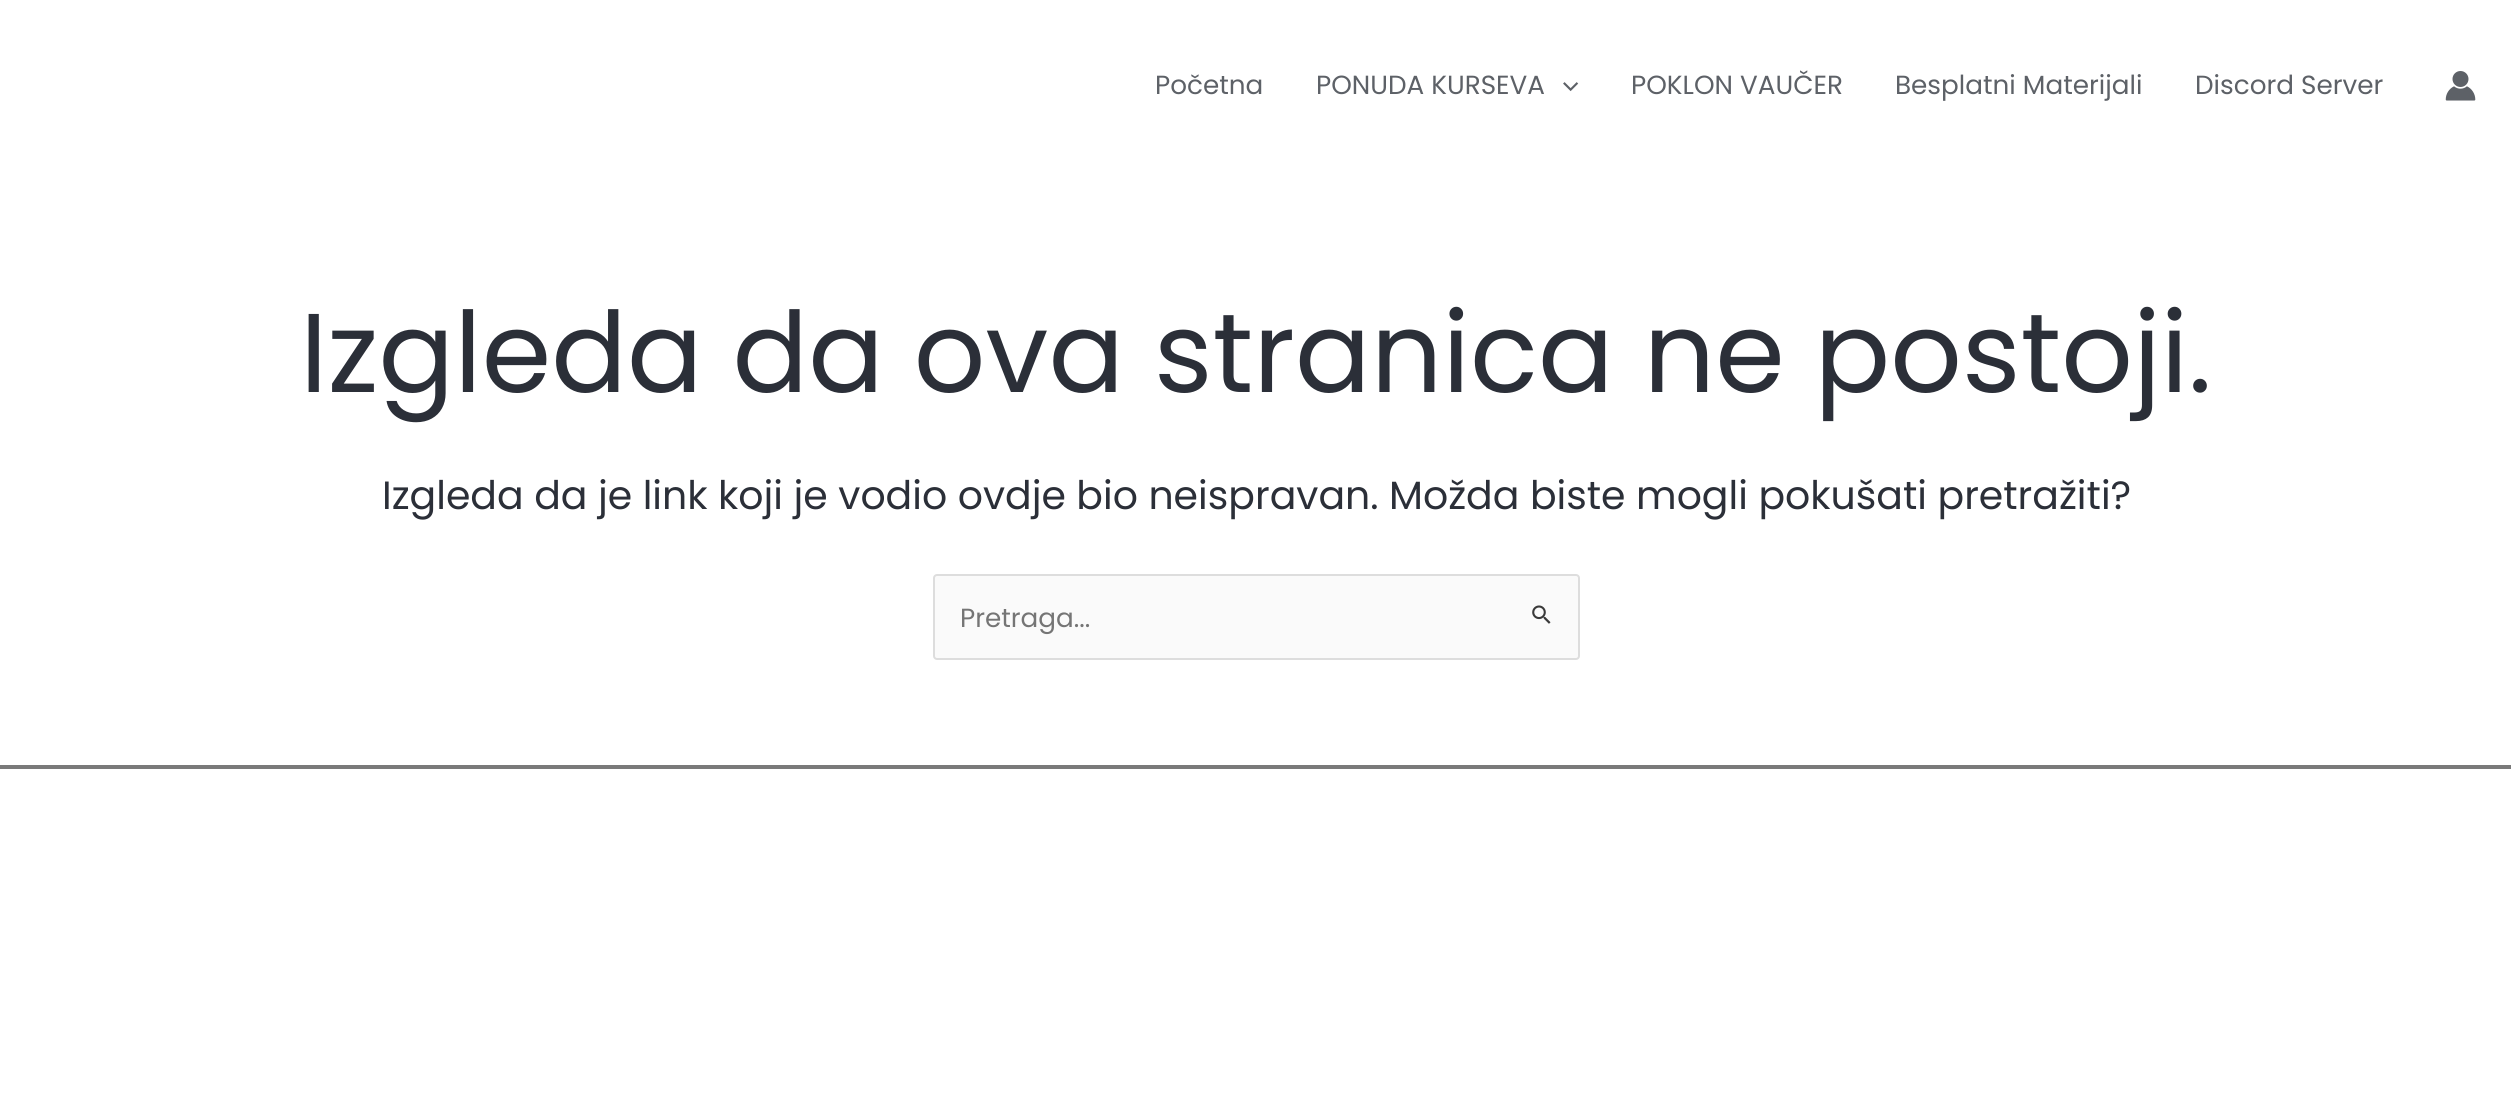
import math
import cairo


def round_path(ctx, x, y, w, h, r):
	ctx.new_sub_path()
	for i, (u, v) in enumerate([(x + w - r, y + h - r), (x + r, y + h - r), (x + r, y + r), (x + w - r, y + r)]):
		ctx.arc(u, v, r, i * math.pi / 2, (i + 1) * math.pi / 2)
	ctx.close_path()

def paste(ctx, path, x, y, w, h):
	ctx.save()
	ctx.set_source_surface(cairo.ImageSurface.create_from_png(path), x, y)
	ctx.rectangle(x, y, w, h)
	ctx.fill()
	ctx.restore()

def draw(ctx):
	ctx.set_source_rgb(1, 1, 1)
	ctx.paint()
	ctx.select_font_face('Poppins')
	ctx.set_font_size(26.25)
	ctx.set_source_rgb(0.365, 0.38, 0.404)
	ctx.move_to(1155, 94)
	ctx.show_text('Početna')
	ctx.move_to(1316, 94)
	ctx.show_text('PONUDA KURSEVA')
	paste(ctx, 'media/1.png', 1563, 82, 16, 10)
	for x, y, s in [
		(1631, 94, 'POKLON VAUČER'),
		(1895, 94, 'Besplatni Materijali'),
		(2195, 94, 'Discord Server'),
	]:
		ctx.move_to(x, y)
		ctx.show_text(s)
	paste(ctx, 'media/2.png', 2445, 71, 31, 30)
	ctx.set_font_size(112)
	ctx.set_source_rgb(0.169, 0.184, 0.22)
	ctx.move_to(300, 392)
	ctx.show_text('Izgleda da ova stranica ne postoji.')
	ctx.set_font_size(39.4)
	ctx.move_to(382, 509)
	ctx.show_text('Izgleda da je link koji je vodio ovdje bio neispravan. Možda biste mogli pokušati pretražiti?')
	ctx.set_source_rgb(0.98, 0.98, 0.98)
	round_path(ctx, 934, 575, 645, 84, 3)
	ctx.fill_preserve()
	ctx.set_source_rgb(0.867, 0.867, 0.867)
	ctx.stroke()
	ctx.set_font_size(26.25)
	ctx.set_source_rgb(0.459, 0.459, 0.459)
	ctx.move_to(960, 627)
	ctx.show_text('Pretraga...')
	paste(ctx, 'media/3.png', 1532, 605, 19, 19)
	ctx.set_source_rgb(0.478, 0.478, 0.478)
	ctx.rectangle(0, 765, 2511, 4)
	ctx.fill()


surface = cairo.ImageSurface(cairo.FORMAT_RGB24, 2511, 1104)
ctx = cairo.Context(surface)
options = cairo.FontOptions()
options.set_hint_metrics(cairo.HINT_METRICS_OFF)
options.set_hint_style(cairo.HINT_STYLE_NONE)
ctx.set_font_options(options)
ctx.set_miter_limit(4)
draw(ctx)
surface.write_to_png('image.png')
